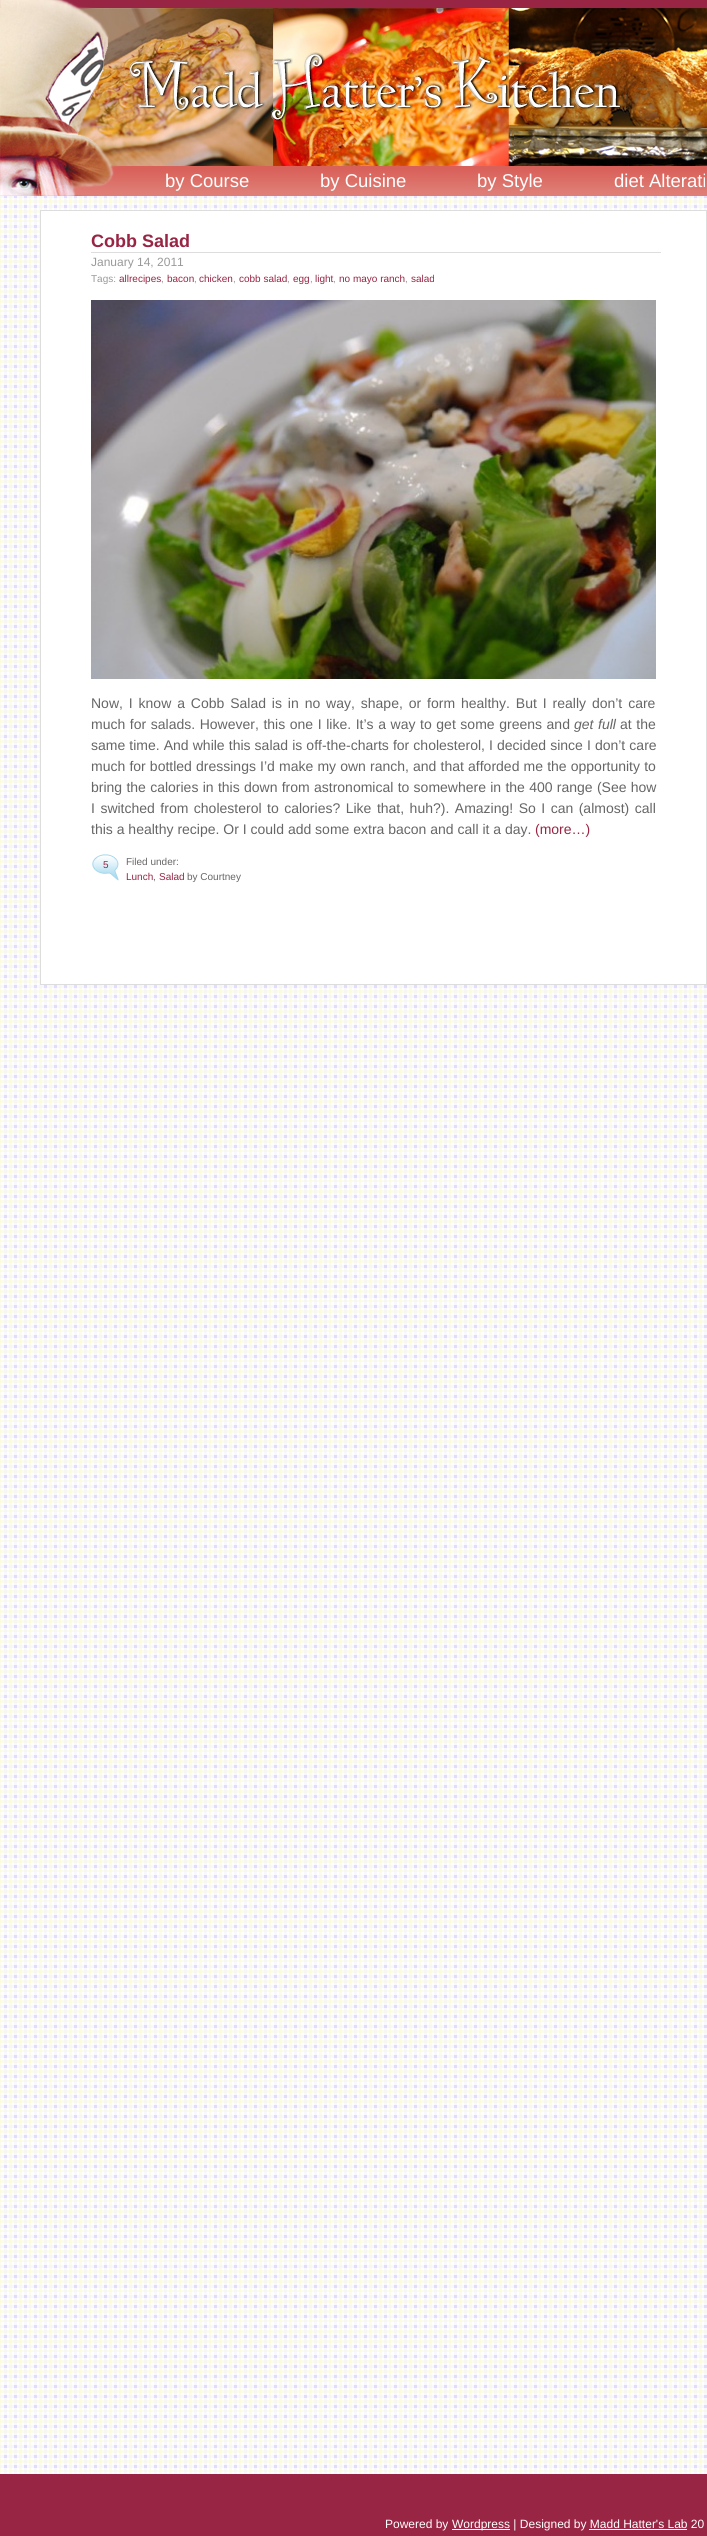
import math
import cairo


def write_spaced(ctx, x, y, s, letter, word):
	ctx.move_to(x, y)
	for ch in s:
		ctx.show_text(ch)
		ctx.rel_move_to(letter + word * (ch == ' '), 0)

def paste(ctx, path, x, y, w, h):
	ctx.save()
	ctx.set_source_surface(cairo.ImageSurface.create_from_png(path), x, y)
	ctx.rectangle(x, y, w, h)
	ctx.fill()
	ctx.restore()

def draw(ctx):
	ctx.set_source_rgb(1, 1, 1)
	ctx.paint()
	paste(ctx, 'media/1.png', 0, 196, 707, 2278)
	paste(ctx, 'media/2.png', 0, 0, 707, 196)
	ctx.select_font_face('Liberation Sans')
	ctx.set_font_size(18.5)
	ctx.set_source_rgb(1, 1, 1)
	for x, y, s in [
		(165, 187, 'by Course'),
		(320, 187, 'by Cuisine'),
		(477, 187, 'by Style'),
		(614, 187, 'diet Alterati'),
	]:
		ctx.move_to(x, y)
		ctx.show_text(s)
	ctx.rectangle(40.5, 210.5, 666, 774)
	ctx.fill_preserve()
	ctx.set_source_rgb(0.867, 0.867, 0.867)
	ctx.set_line_width(1)
	ctx.stroke()
	ctx.rectangle(91, 252, 570, 1)
	ctx.fill()
	ctx.select_font_face('Liberation Sans', cairo.FONT_SLANT_NORMAL, cairo.FONT_WEIGHT_BOLD)
	ctx.set_font_size(18)
	ctx.set_source_rgb(0.596, 0.145, 0.267)
	ctx.move_to(91, 247)
	ctx.show_text('Cobb Salad')
	ctx.select_font_face('Liberation Sans')
	ctx.set_font_size(12)
	ctx.set_source_rgb(0.6, 0.6, 0.6)
	ctx.move_to(91, 266)
	ctx.show_text('January 14, 2011')
	ctx.set_font_size(10)
	ctx.move_to(91, 282)
	ctx.show_text('Tags:')
	ctx.set_source_rgb(0.596, 0.145, 0.267)
	ctx.move_to(119, 282)
	ctx.show_text('allrecipes')
	ctx.set_source_rgb(0.6, 0.6, 0.6)
	ctx.move_to(161, 282)
	ctx.show_text(',')
	ctx.set_source_rgb(0.596, 0.145, 0.267)
	ctx.move_to(167, 282)
	ctx.show_text('bacon')
	ctx.set_source_rgb(0.6, 0.6, 0.6)
	ctx.move_to(194, 282)
	ctx.show_text(',')
	ctx.set_source_rgb(0.596, 0.145, 0.267)
	ctx.move_to(199, 282)
	ctx.show_text('chicken')
	ctx.set_source_rgb(0.6, 0.6, 0.6)
	ctx.move_to(233, 282)
	ctx.show_text(',')
	ctx.set_source_rgb(0.596, 0.145, 0.267)
	ctx.move_to(239, 282)
	ctx.show_text('cobb salad')
	ctx.set_source_rgb(0.6, 0.6, 0.6)
	ctx.move_to(287, 282)
	ctx.show_text(',')
	ctx.set_source_rgb(0.596, 0.145, 0.267)
	ctx.move_to(293, 282)
	ctx.show_text('egg')
	ctx.set_source_rgb(0.6, 0.6, 0.6)
	ctx.move_to(310, 282)
	ctx.show_text(',')
	ctx.set_source_rgb(0.596, 0.145, 0.267)
	ctx.move_to(315, 282)
	ctx.show_text('light')
	ctx.set_source_rgb(0.6, 0.6, 0.6)
	ctx.move_to(333, 282)
	ctx.show_text(',')
	ctx.set_source_rgb(0.596, 0.145, 0.267)
	ctx.move_to(339, 282)
	ctx.show_text('no mayo ranch')
	ctx.set_source_rgb(0.6, 0.6, 0.6)
	ctx.move_to(405, 282)
	ctx.show_text(',')
	ctx.set_source_rgb(0.596, 0.145, 0.267)
	ctx.move_to(411, 282)
	ctx.show_text('salad')
	paste(ctx, 'media/3.png', 91, 300, 565, 379)
	ctx.set_font_size(14)
	ctx.set_source_rgb(0.4, 0.4, 0.4)
	write_spaced(ctx, 91, 708, 'Now, I know a Cobb Salad is in no way, shape, or form healthy. But I really don’t care', 0, 2)
	write_spaced(ctx, 91, 729, 'much for salads. However, this one I like. It’s a way to get some greens and', 0, 0.7)
	ctx.select_font_face('Liberation Sans', cairo.FONT_SLANT_ITALIC)
	write_spaced(ctx, 574, 729, 'get full', 0, 0.7)
	ctx.select_font_face('Liberation Sans')
	write_spaced(ctx, 620, 729, 'at the', 0, 0.7)
	write_spaced(ctx, 91, 750, 'same time. And while this salad is off-the-charts for cholesterol, I decided since I don’t care', 0, 0.2)
	write_spaced(ctx, 91, 771, 'much for bottled dressings I’d make my own ranch, and that afforded me the opportunity to', 0, 0.25)
	write_spaced(ctx, 91, 792, 'bring the calories in this down from astronomical to somewhere in the 400 range (See how', 0, 0.4)
	write_spaced(ctx, 91, 813, 'I switched from cholesterol to calories? Like that, huh?). Amazing! So I can (almost) call', 0, 1.6)
	ctx.move_to(91, 834)
	ctx.show_text('this a healthy recipe. Or I could add some extra bacon and call it a day.')
	ctx.set_source_rgb(0.596, 0.145, 0.267)
	ctx.move_to(535, 834)
	ctx.show_text('(more…)')
	paste(ctx, 'media/4.png', 92, 854, 27, 27)
	ctx.set_font_size(10)
	ctx.move_to(103, 868)
	ctx.show_text('5')
	ctx.set_source_rgb(0.4, 0.4, 0.4)
	ctx.move_to(126, 865)
	ctx.show_text('Filed under:')
	ctx.set_source_rgb(0.596, 0.145, 0.267)
	ctx.move_to(126, 880)
	ctx.show_text('Lunch')
	ctx.set_source_rgb(0.4, 0.4, 0.4)
	ctx.move_to(153, 880)
	ctx.show_text(',')
	ctx.set_source_rgb(0.596, 0.145, 0.267)
	ctx.move_to(159, 880)
	ctx.show_text('Salad')
	ctx.set_source_rgb(0.4, 0.4, 0.4)
	ctx.move_to(187, 880)
	ctx.show_text('by Courtney')
	ctx.set_source_rgb(0.596, 0.145, 0.267)
	ctx.rectangle(0, 2474, 707, 62)
	ctx.fill()
	ctx.set_font_size(12)
	ctx.set_source_rgb(1, 1, 1)
	ctx.move_to(385, 2528)
	ctx.show_text('Powered by')
	ctx.rectangle(452, 2529, 58, 1)
	ctx.fill()
	ctx.move_to(452, 2528)
	ctx.show_text('Wordpress | Designed by Madd Hatter\'s Lab 20')
	ctx.rectangle(589, 2529, 98, 1)
	ctx.fill()


surface = cairo.ImageSurface(cairo.FORMAT_RGB24, 707, 2536)
ctx = cairo.Context(surface)
options = cairo.FontOptions()
options.set_hint_metrics(cairo.HINT_METRICS_OFF)
options.set_hint_style(cairo.HINT_STYLE_NONE)
ctx.set_font_options(options)
ctx.set_miter_limit(4)
draw(ctx)
surface.write_to_png('image.png')
